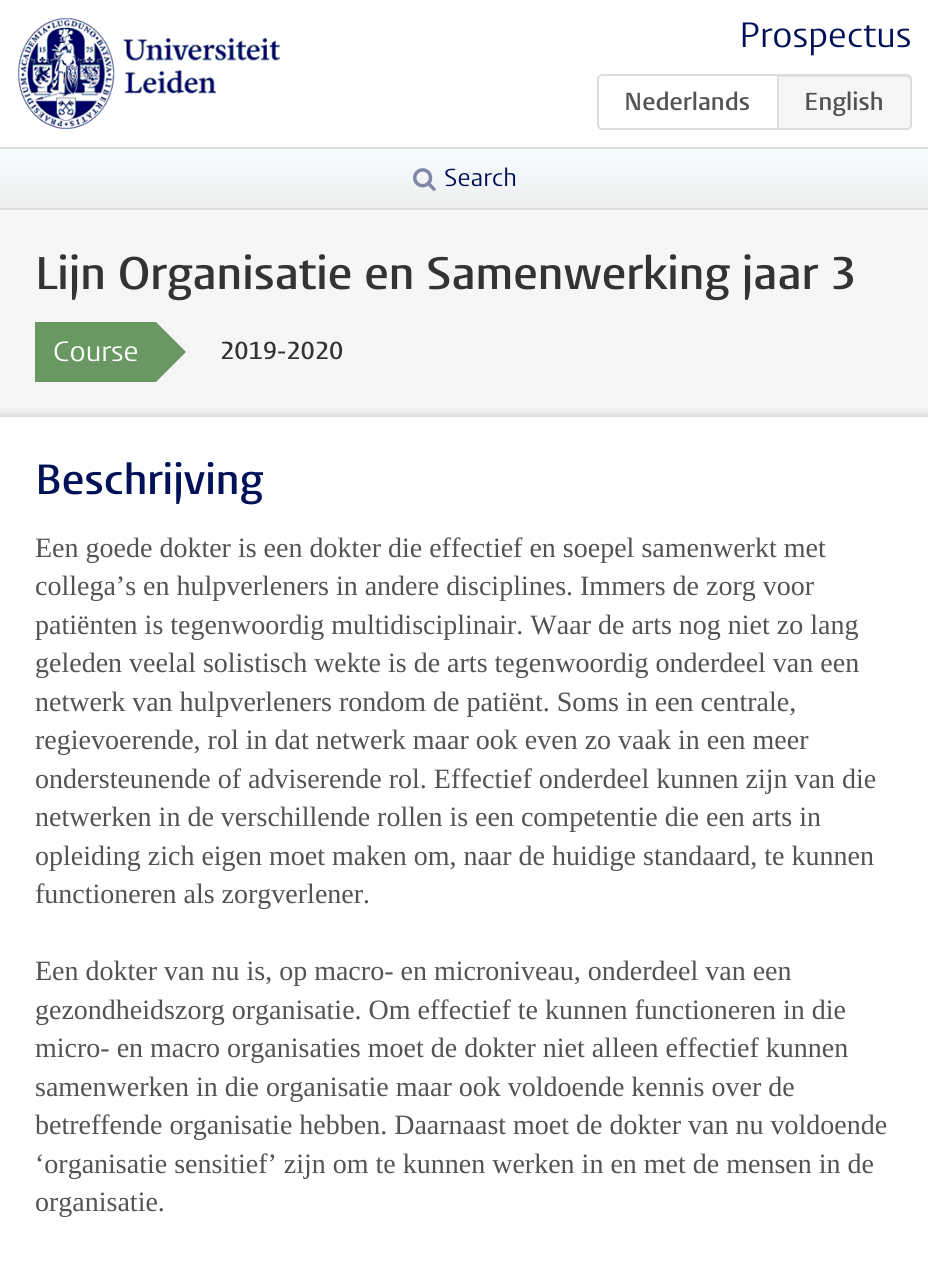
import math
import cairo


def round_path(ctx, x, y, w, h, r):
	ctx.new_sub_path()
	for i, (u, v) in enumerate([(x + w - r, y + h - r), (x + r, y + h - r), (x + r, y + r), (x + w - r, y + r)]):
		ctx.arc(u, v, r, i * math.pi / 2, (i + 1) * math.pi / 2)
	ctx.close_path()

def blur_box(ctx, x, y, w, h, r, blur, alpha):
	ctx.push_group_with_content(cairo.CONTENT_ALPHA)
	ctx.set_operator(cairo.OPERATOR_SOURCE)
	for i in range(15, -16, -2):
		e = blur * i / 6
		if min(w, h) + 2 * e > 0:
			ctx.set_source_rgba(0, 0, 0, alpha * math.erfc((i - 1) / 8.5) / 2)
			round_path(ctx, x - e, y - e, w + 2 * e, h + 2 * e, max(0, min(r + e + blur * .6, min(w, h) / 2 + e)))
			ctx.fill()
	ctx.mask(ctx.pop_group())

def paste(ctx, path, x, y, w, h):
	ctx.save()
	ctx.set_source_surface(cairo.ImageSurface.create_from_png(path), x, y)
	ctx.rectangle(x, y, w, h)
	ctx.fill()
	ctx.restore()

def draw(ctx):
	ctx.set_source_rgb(0.961, 0.961, 0.961)
	ctx.paint()
	ctx.set_source_rgb(1, 1, 1)
	ctx.rectangle(0, 0, 928, 147)
	ctx.fill()
	paste(ctx, 'media/1.png', 18, 18, 262, 111)
	ctx.select_font_face('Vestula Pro')
	ctx.set_font_size(35)
	ctx.set_source_rgb(0, 0.067, 0.345)
	ctx.move_to(739, 47)
	ctx.show_text('Prospectus')
	ctx.new_path()
	ctx.move_to(602, 75)
	ctx.line_to(778, 75)
	ctx.line_to(778, 129)
	ctx.line_to(602, 129)
	ctx.curve_to(600, 129, 598, 127, 598, 125)
	ctx.line_to(598, 79)
	ctx.curve_to(598, 77, 600, 75, 602, 75)
	ctx.close_path()
	ctx.set_source_rgb(0.867, 0.867, 0.867)
	ctx.stroke()
	ctx.select_font_face('Vestula Pro SemiBold')
	ctx.set_font_size(24.5)
	ctx.set_source_rgb(0.325, 0.325, 0.325)
	ctx.move_to(624, 110)
	ctx.show_text('Nederlands')
	ctx.set_source_rgb(0.961, 0.961, 0.961)
	ctx.new_path()
	ctx.move_to(777, 74)
	ctx.line_to(907, 74)
	ctx.curve_to(910, 74, 912, 76, 912, 79)
	ctx.line_to(912, 125)
	ctx.curve_to(912, 128, 910, 130, 907, 130)
	ctx.line_to(777, 130)
	ctx.close_path()
	ctx.fill()
	ctx.set_source_rgb(0.882, 0.882, 0.882)
	ctx.new_path()
	ctx.move_to(779, 77)
	ctx.line_to(906, 77)
	ctx.curve_to(908, 77, 910, 79, 910, 80)
	ctx.line_to(910, 79)
	ctx.curve_to(910, 77, 908, 75, 906, 75)
	ctx.line_to(779, 75)
	ctx.close_path()
	ctx.fill()
	ctx.new_path()
	ctx.move_to(778, 75)
	ctx.line_to(907, 75)
	ctx.curve_to(909, 75, 911, 77, 911, 79)
	ctx.line_to(911, 125)
	ctx.curve_to(911, 127, 909, 129, 907, 129)
	ctx.line_to(778, 129)
	ctx.close_path()
	ctx.set_source_rgb(0.867, 0.867, 0.867)
	ctx.stroke()
	ctx.set_source_rgb(0.325, 0.325, 0.325)
	ctx.move_to(804, 110)
	ctx.show_text('English')
	gradient = cairo.LinearGradient(465, 208, 465, 149)
	gradient.add_color_stop_rgba(0, 0.933, 0.933, 0.933, 1)
	gradient.add_color_stop_rgba(1, 0.969, 0.992, 1, 1)
	ctx.set_source(gradient)
	ctx.rectangle(0, 149, 928, 59)
	ctx.fill()
	ctx.set_source_rgb(0.867, 0.867, 0.867)
	ctx.rectangle(0, 147, 928, 2)
	ctx.fill()
	ctx.rectangle(0, 208, 928, 2)
	ctx.fill()
	paste(ctx, 'media/2.png', 413, 168, 23, 23)
	ctx.select_font_face('Vestula Pro')
	ctx.set_source_rgb(0, 0.067, 0.345)
	ctx.move_to(444, 186)
	ctx.show_text('Search')
	ctx.select_font_face('Vestula Pro SemiBold')
	ctx.set_font_size(45.5)
	ctx.set_source_rgb(0.2, 0.2, 0.2)
	ctx.move_to(35, 289)
	ctx.show_text('Lijn Organisatie en Samenwerking jaar 3')
	ctx.set_source_rgb(0.416, 0.596, 0.388)
	ctx.rectangle(35, 322, 121, 60)
	ctx.fill()
	ctx.select_font_face('Vestula Pro')
	ctx.set_font_size(28)
	ctx.set_source_rgb(1, 1, 1)
	ctx.move_to(53, 361)
	ctx.show_text('Course')
	ctx.set_source_rgb(0.416, 0.596, 0.388)
	ctx.new_path()
	ctx.move_to(156, 382)
	ctx.line_to(156, 322)
	ctx.line_to(186, 352)
	ctx.close_path()
	ctx.fill()
	ctx.select_font_face('Vestula Pro SemiBold')
	ctx.set_font_size(24.5)
	ctx.set_source_rgb(0.2, 0.2, 0.2)
	ctx.move_to(220, 359)
	ctx.show_text('2019-2020')
	ctx.set_source_rgb(0.471, 0.431, 0.392)
	blur_box(ctx, -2, 415, 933, 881, 0, 4.5, 0.3)
	ctx.set_source_rgb(1, 1, 1)
	ctx.rectangle(0, 417, 928, 865)
	ctx.fill()
	ctx.set_font_size(42)
	ctx.set_source_rgb(0, 0.067, 0.345)
	ctx.move_to(35, 494)
	ctx.show_text('Beschrijving')
	ctx.select_font_face('Liberation Serif')
	ctx.set_font_size(28)
	ctx.set_source_rgb(0.325, 0.325, 0.325)
	for x, y, s in [
		(35, 557, 'Een goede dokter is een dokter die effectief en soepel samenwerkt met'),
		(35, 595, 'collega’s en hulpverleners in andere disciplines. Immers de zorg voor'),
		(35, 634, 'patiënten is tegenwoordig multidisciplinair. Waar de arts nog niet zo lang'),
		(35, 672, 'geleden veelal solistisch wekte is de arts tegenwoordig onderdeel van een'),
		(35, 711, 'netwerk van hulpverleners rondom de patiënt. Soms in een centrale,'),
		(35, 749, 'regievoerende, rol in dat netwerk maar ook even zo vaak in een meer'),
		(35, 788, 'ondersteunende of adviserende rol. Effectief onderdeel kunnen zijn van die'),
		(35, 826, 'netwerken in de verschillende rollen is een competentie die een arts in'),
		(35, 865, 'opleiding zich eigen moet maken om, naar de huidige standaard, te kunnen'),
		(35, 903, 'functioneren als zorgverlener.'),
		(35, 980, 'Een dokter van nu is, op macro- en microniveau, onderdeel van een'),
		(35, 1019, 'gezondheidszorg organisatie. Om effectief te kunnen functioneren in die'),
		(35, 1057, 'micro- en macro organisaties moet de dokter niet alleen effectief kunnen'),
		(35, 1096, 'samenwerken in die organisatie maar ook voldoende kennis over de'),
		(35, 1134, 'betreffende organisatie hebben. Daarnaast moet de dokter van nu voldoende'),
		(35, 1173, '‘organisatie sensitief’ zijn om te kunnen werken in en met de mensen in de'),
		(35, 1211, 'organisatie.'),
	]:
		ctx.move_to(x, y)
		ctx.show_text(s)


surface = cairo.ImageSurface(cairo.FORMAT_RGB24, 928, 1282)
ctx = cairo.Context(surface)
options = cairo.FontOptions()
options.set_hint_metrics(cairo.HINT_METRICS_OFF)
options.set_hint_style(cairo.HINT_STYLE_NONE)
ctx.set_font_options(options)
ctx.set_miter_limit(4)
draw(ctx)
surface.write_to_png('image.png')
